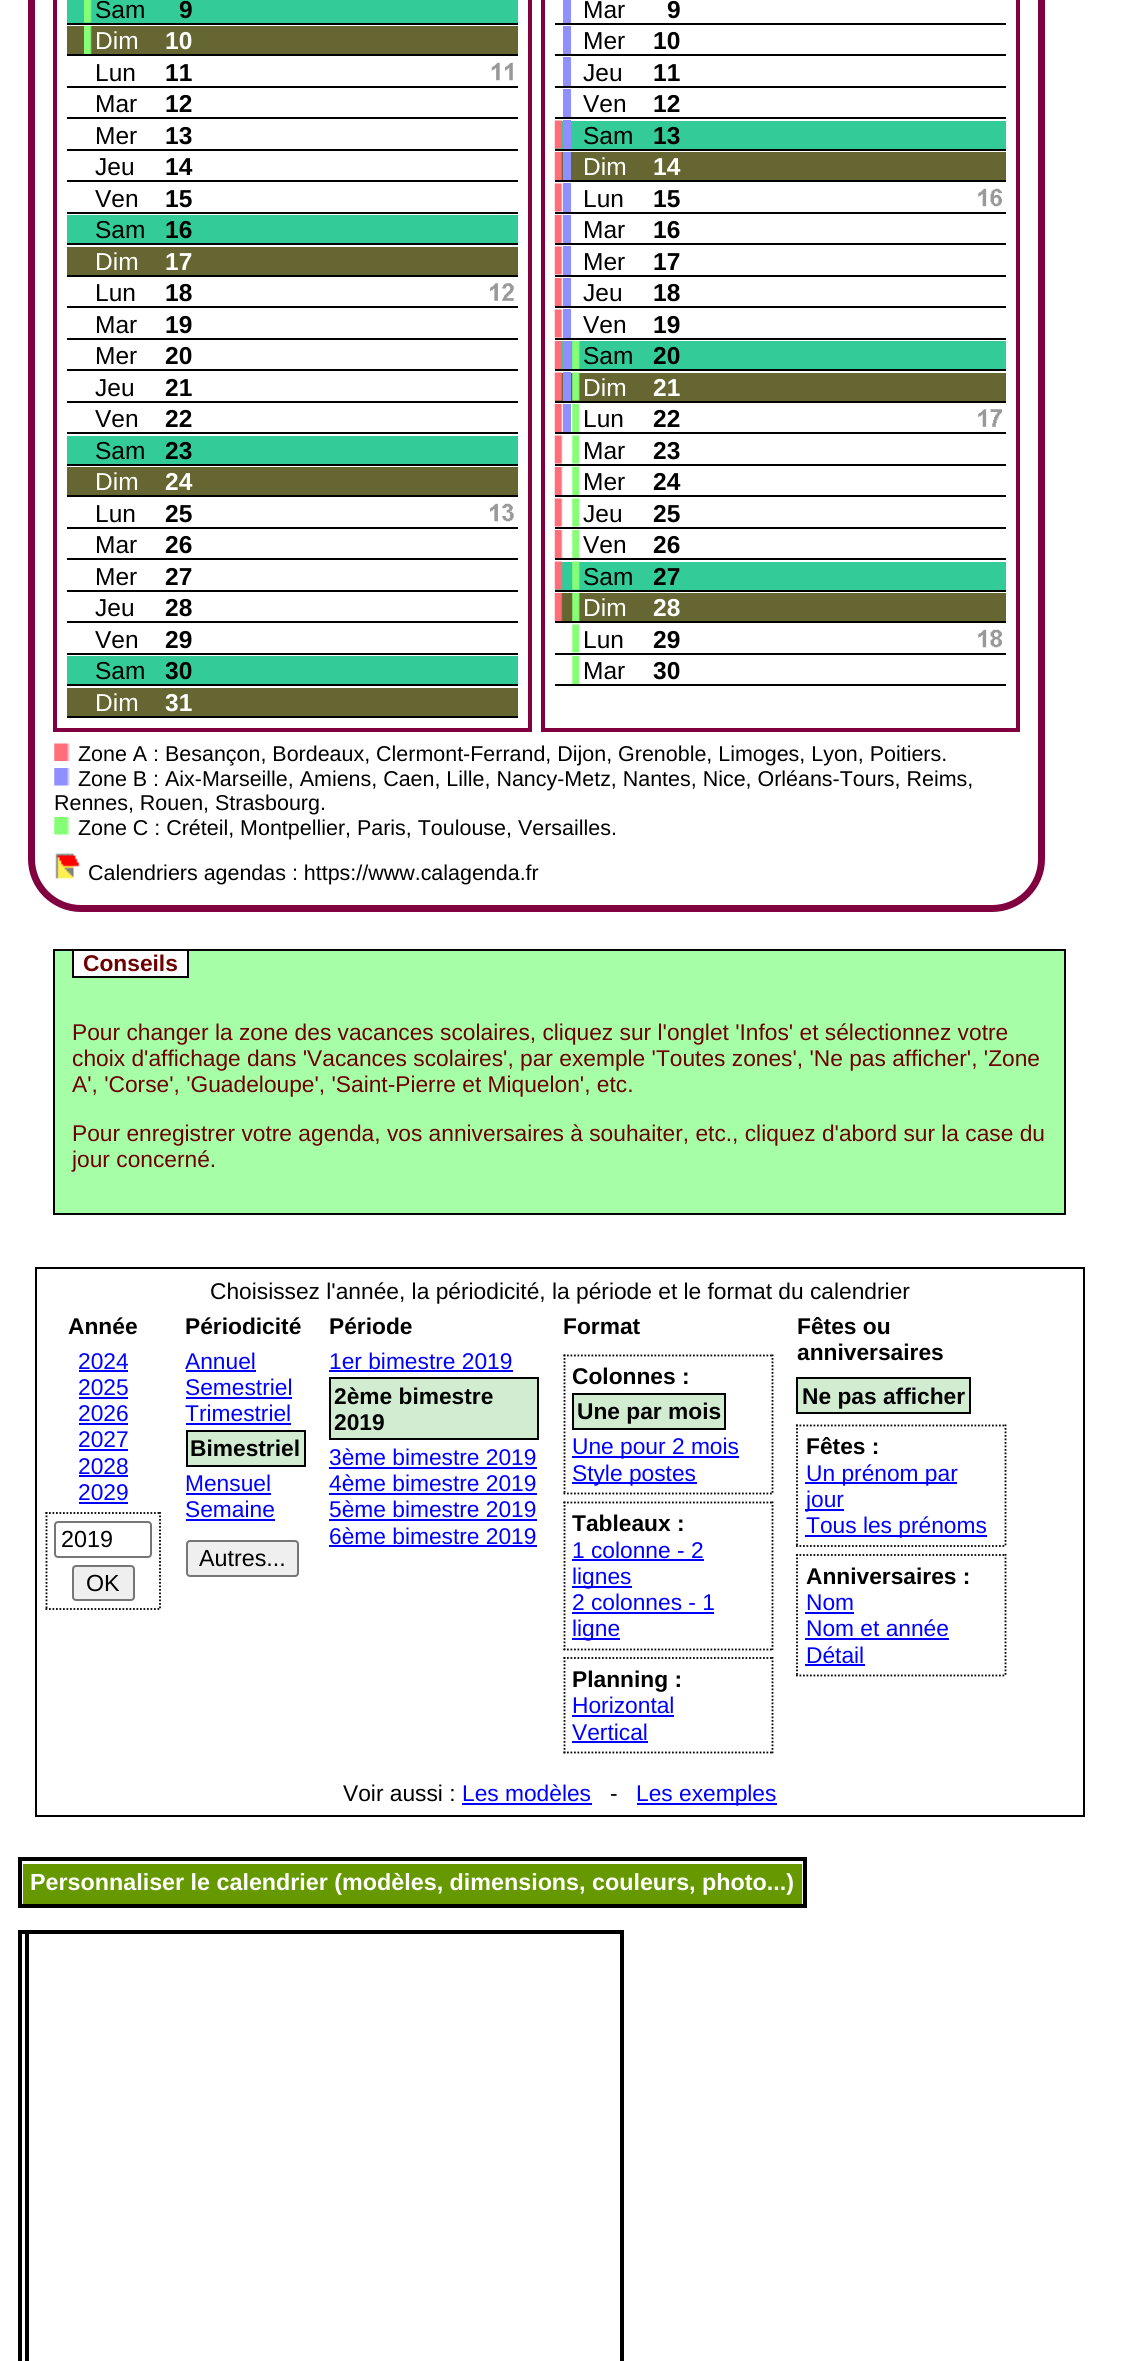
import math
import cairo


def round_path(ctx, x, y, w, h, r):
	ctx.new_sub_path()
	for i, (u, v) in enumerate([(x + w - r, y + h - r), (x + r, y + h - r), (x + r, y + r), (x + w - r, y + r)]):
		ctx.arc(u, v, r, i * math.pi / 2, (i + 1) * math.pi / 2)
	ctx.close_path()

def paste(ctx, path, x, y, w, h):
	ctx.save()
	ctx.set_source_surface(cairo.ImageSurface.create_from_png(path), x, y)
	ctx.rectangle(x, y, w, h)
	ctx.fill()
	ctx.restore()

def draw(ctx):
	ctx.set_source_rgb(1, 1, 1)
	ctx.paint()
	round_path(ctx, 31.5, -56.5, 1010, 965, 49.5)
	ctx.set_source_rgb(0.502, 0, 0.251)
	ctx.set_line_width(7)
	ctx.stroke()
	ctx.rectangle(55, -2, 475, 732)
	ctx.set_line_width(4)
	ctx.stroke()
	ctx.set_source_rgb(0.2, 0.8, 0.6)
	ctx.rectangle(67, 0, 451, 23)
	ctx.fill()
	ctx.set_source_rgb(0, 0, 0)
	ctx.rectangle(67, 23, 451, 2)
	ctx.fill()
	paste(ctx, 'media/1.png', 84, 0, 8, 23)
	ctx.select_font_face('Liberation Sans')
	ctx.set_font_size(24.5)
	ctx.move_to(95, 18)
	ctx.show_text('Sam')
	ctx.select_font_face('Liberation Sans', cairo.FONT_SLANT_NORMAL, cairo.FONT_WEIGHT_BOLD)
	ctx.move_to(179, 18)
	ctx.show_text('9')
	ctx.set_source_rgb(0.4, 0.4, 0.2)
	ctx.rectangle(67, 26, 451, 28)
	ctx.fill()
	ctx.set_source_rgb(0, 0, 0)
	ctx.rectangle(67, 54, 451, 2)
	ctx.fill()
	paste(ctx, 'media/2.png', 84, 26, 8, 28)
	ctx.select_font_face('Liberation Sans')
	ctx.set_source_rgb(1, 1, 1)
	ctx.move_to(95, 49)
	ctx.show_text('Dim')
	ctx.select_font_face('Liberation Sans', cairo.FONT_SLANT_NORMAL, cairo.FONT_WEIGHT_BOLD)
	ctx.move_to(165, 49)
	ctx.show_text('10')
	ctx.set_source_rgb(0, 0, 0)
	ctx.rectangle(67, 86, 451, 2)
	ctx.fill()
	paste(ctx, 'media/3.png', 491, 62, 22, 19)
	ctx.select_font_face('Liberation Sans')
	ctx.move_to(95, 81)
	ctx.show_text('Lun')
	ctx.select_font_face('Liberation Sans', cairo.FONT_SLANT_NORMAL, cairo.FONT_WEIGHT_BOLD)
	ctx.move_to(165, 81)
	ctx.show_text('11')
	ctx.rectangle(67, 117, 451, 2)
	ctx.fill()
	ctx.select_font_face('Liberation Sans')
	ctx.move_to(95, 112)
	ctx.show_text('Mar')
	ctx.select_font_face('Liberation Sans', cairo.FONT_SLANT_NORMAL, cairo.FONT_WEIGHT_BOLD)
	ctx.move_to(165, 112)
	ctx.show_text('12')
	ctx.rectangle(67, 149, 451, 2)
	ctx.fill()
	ctx.select_font_face('Liberation Sans')
	ctx.move_to(95, 144)
	ctx.show_text('Mer')
	ctx.select_font_face('Liberation Sans', cairo.FONT_SLANT_NORMAL, cairo.FONT_WEIGHT_BOLD)
	ctx.move_to(165, 144)
	ctx.show_text('13')
	ctx.rectangle(67, 180, 451, 2)
	ctx.fill()
	ctx.select_font_face('Liberation Sans')
	ctx.move_to(95, 175)
	ctx.show_text('Jeu')
	ctx.select_font_face('Liberation Sans', cairo.FONT_SLANT_NORMAL, cairo.FONT_WEIGHT_BOLD)
	ctx.move_to(165, 175)
	ctx.show_text('14')
	ctx.rectangle(67, 212, 451, 2)
	ctx.fill()
	ctx.select_font_face('Liberation Sans')
	ctx.move_to(95, 207)
	ctx.show_text('Ven')
	ctx.select_font_face('Liberation Sans', cairo.FONT_SLANT_NORMAL, cairo.FONT_WEIGHT_BOLD)
	ctx.move_to(165, 207)
	ctx.show_text('15')
	ctx.set_source_rgb(0.2, 0.8, 0.6)
	ctx.rectangle(67, 215, 451, 28)
	ctx.fill()
	ctx.set_source_rgb(0, 0, 0)
	ctx.rectangle(67, 243, 451, 2)
	ctx.fill()
	ctx.select_font_face('Liberation Sans')
	ctx.move_to(95, 238)
	ctx.show_text('Sam')
	ctx.select_font_face('Liberation Sans', cairo.FONT_SLANT_NORMAL, cairo.FONT_WEIGHT_BOLD)
	ctx.move_to(165, 238)
	ctx.show_text('16')
	ctx.set_source_rgb(0.4, 0.4, 0.2)
	ctx.rectangle(67, 247, 451, 28)
	ctx.fill()
	ctx.set_source_rgb(0, 0, 0)
	ctx.rectangle(67, 275, 451, 2)
	ctx.fill()
	ctx.select_font_face('Liberation Sans')
	ctx.set_source_rgb(1, 1, 1)
	ctx.move_to(95, 270)
	ctx.show_text('Dim')
	ctx.select_font_face('Liberation Sans', cairo.FONT_SLANT_NORMAL, cairo.FONT_WEIGHT_BOLD)
	ctx.move_to(165, 270)
	ctx.show_text('17')
	ctx.set_source_rgb(0, 0, 0)
	ctx.rectangle(67, 306, 451, 2)
	ctx.fill()
	paste(ctx, 'media/4.png', 490, 283, 24, 18)
	ctx.select_font_face('Liberation Sans')
	ctx.move_to(95, 301)
	ctx.show_text('Lun')
	ctx.select_font_face('Liberation Sans', cairo.FONT_SLANT_NORMAL, cairo.FONT_WEIGHT_BOLD)
	ctx.move_to(165, 301)
	ctx.show_text('18')
	ctx.rectangle(67, 338, 451, 2)
	ctx.fill()
	ctx.select_font_face('Liberation Sans')
	ctx.move_to(95, 333)
	ctx.show_text('Mar')
	ctx.select_font_face('Liberation Sans', cairo.FONT_SLANT_NORMAL, cairo.FONT_WEIGHT_BOLD)
	ctx.move_to(165, 333)
	ctx.show_text('19')
	ctx.rectangle(67, 369, 451, 2)
	ctx.fill()
	ctx.select_font_face('Liberation Sans')
	ctx.move_to(95, 364)
	ctx.show_text('Mer')
	ctx.select_font_face('Liberation Sans', cairo.FONT_SLANT_NORMAL, cairo.FONT_WEIGHT_BOLD)
	ctx.move_to(165, 364)
	ctx.show_text('20')
	ctx.rectangle(67, 401, 451, 2)
	ctx.fill()
	ctx.select_font_face('Liberation Sans')
	ctx.move_to(95, 396)
	ctx.show_text('Jeu')
	ctx.select_font_face('Liberation Sans', cairo.FONT_SLANT_NORMAL, cairo.FONT_WEIGHT_BOLD)
	ctx.move_to(165, 396)
	ctx.show_text('21')
	ctx.rectangle(67, 432, 451, 2)
	ctx.fill()
	ctx.select_font_face('Liberation Sans')
	ctx.move_to(95, 427)
	ctx.show_text('Ven')
	ctx.select_font_face('Liberation Sans', cairo.FONT_SLANT_NORMAL, cairo.FONT_WEIGHT_BOLD)
	ctx.move_to(165, 427)
	ctx.show_text('22')
	ctx.set_source_rgb(0.2, 0.8, 0.6)
	ctx.rectangle(67, 436, 451, 28)
	ctx.fill()
	ctx.set_source_rgb(0, 0, 0)
	ctx.rectangle(67, 464, 451, 2)
	ctx.fill()
	ctx.select_font_face('Liberation Sans')
	ctx.move_to(95, 459)
	ctx.show_text('Sam')
	ctx.select_font_face('Liberation Sans', cairo.FONT_SLANT_NORMAL, cairo.FONT_WEIGHT_BOLD)
	ctx.move_to(165, 459)
	ctx.show_text('23')
	ctx.set_source_rgb(0.4, 0.4, 0.2)
	ctx.rectangle(67, 467, 451, 28)
	ctx.fill()
	ctx.set_source_rgb(0, 0, 0)
	ctx.rectangle(67, 495, 451, 2)
	ctx.fill()
	ctx.select_font_face('Liberation Sans')
	ctx.set_source_rgb(1, 1, 1)
	ctx.move_to(95, 490)
	ctx.show_text('Dim')
	ctx.select_font_face('Liberation Sans', cairo.FONT_SLANT_NORMAL, cairo.FONT_WEIGHT_BOLD)
	ctx.move_to(165, 490)
	ctx.show_text('24')
	ctx.set_source_rgb(0, 0, 0)
	ctx.rectangle(67, 527, 451, 2)
	ctx.fill()
	paste(ctx, 'media/5.png', 490, 503, 24, 19)
	ctx.select_font_face('Liberation Sans')
	ctx.move_to(95, 522)
	ctx.show_text('Lun')
	ctx.select_font_face('Liberation Sans', cairo.FONT_SLANT_NORMAL, cairo.FONT_WEIGHT_BOLD)
	ctx.move_to(165, 522)
	ctx.show_text('25')
	ctx.rectangle(67, 558, 451, 2)
	ctx.fill()
	ctx.select_font_face('Liberation Sans')
	ctx.move_to(95, 553)
	ctx.show_text('Mar')
	ctx.select_font_face('Liberation Sans', cairo.FONT_SLANT_NORMAL, cairo.FONT_WEIGHT_BOLD)
	ctx.move_to(165, 553)
	ctx.show_text('26')
	ctx.rectangle(67, 590, 451, 2)
	ctx.fill()
	ctx.select_font_face('Liberation Sans')
	ctx.move_to(95, 585)
	ctx.show_text('Mer')
	ctx.select_font_face('Liberation Sans', cairo.FONT_SLANT_NORMAL, cairo.FONT_WEIGHT_BOLD)
	ctx.move_to(165, 585)
	ctx.show_text('27')
	ctx.rectangle(67, 621, 451, 2)
	ctx.fill()
	ctx.select_font_face('Liberation Sans')
	ctx.move_to(95, 616)
	ctx.show_text('Jeu')
	ctx.select_font_face('Liberation Sans', cairo.FONT_SLANT_NORMAL, cairo.FONT_WEIGHT_BOLD)
	ctx.move_to(165, 616)
	ctx.show_text('28')
	ctx.rectangle(67, 653, 451, 2)
	ctx.fill()
	ctx.select_font_face('Liberation Sans')
	ctx.move_to(95, 648)
	ctx.show_text('Ven')
	ctx.select_font_face('Liberation Sans', cairo.FONT_SLANT_NORMAL, cairo.FONT_WEIGHT_BOLD)
	ctx.move_to(165, 648)
	ctx.show_text('29')
	ctx.set_source_rgb(0.2, 0.8, 0.6)
	ctx.rectangle(67, 656, 451, 28)
	ctx.fill()
	ctx.set_source_rgb(0, 0, 0)
	ctx.rectangle(67, 684, 451, 2)
	ctx.fill()
	ctx.select_font_face('Liberation Sans')
	ctx.move_to(95, 679)
	ctx.show_text('Sam')
	ctx.select_font_face('Liberation Sans', cairo.FONT_SLANT_NORMAL, cairo.FONT_WEIGHT_BOLD)
	ctx.move_to(165, 679)
	ctx.show_text('30')
	ctx.set_source_rgb(0.4, 0.4, 0.2)
	ctx.rectangle(67, 688, 451, 28)
	ctx.fill()
	ctx.set_source_rgb(0, 0, 0)
	ctx.rectangle(67, 716, 451, 2)
	ctx.fill()
	ctx.select_font_face('Liberation Sans')
	ctx.set_source_rgb(1, 1, 1)
	ctx.move_to(95, 711)
	ctx.show_text('Dim')
	ctx.select_font_face('Liberation Sans', cairo.FONT_SLANT_NORMAL, cairo.FONT_WEIGHT_BOLD)
	ctx.move_to(165, 711)
	ctx.show_text('31')
	ctx.rectangle(543, -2, 475, 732)
	ctx.set_source_rgb(0.502, 0, 0.251)
	ctx.stroke()
	ctx.set_source_rgb(0, 0, 0)
	ctx.rectangle(555, 23, 451, 2)
	ctx.fill()
	ctx.set_source_rgb(0.561, 0.561, 1)
	ctx.rectangle(563, 0, 8, 23)
	ctx.fill()
	ctx.select_font_face('Liberation Sans')
	ctx.set_source_rgb(0, 0, 0)
	ctx.move_to(583, 18)
	ctx.show_text('Mar')
	ctx.select_font_face('Liberation Sans', cairo.FONT_SLANT_NORMAL, cairo.FONT_WEIGHT_BOLD)
	ctx.move_to(667, 18)
	ctx.show_text('9')
	ctx.rectangle(555, 54, 451, 2)
	ctx.fill()
	ctx.set_source_rgb(0.561, 0.561, 1)
	ctx.rectangle(563, 26, 8, 28)
	ctx.fill()
	ctx.select_font_face('Liberation Sans')
	ctx.set_source_rgb(0, 0, 0)
	ctx.move_to(583, 49)
	ctx.show_text('Mer')
	ctx.select_font_face('Liberation Sans', cairo.FONT_SLANT_NORMAL, cairo.FONT_WEIGHT_BOLD)
	ctx.move_to(653, 49)
	ctx.show_text('10')
	ctx.rectangle(555, 86, 451, 2)
	ctx.fill()
	ctx.set_source_rgb(0.561, 0.561, 1)
	ctx.rectangle(563, 57, 8, 29)
	ctx.fill()
	ctx.select_font_face('Liberation Sans')
	ctx.set_source_rgb(0, 0, 0)
	ctx.move_to(583, 81)
	ctx.show_text('Jeu')
	ctx.select_font_face('Liberation Sans', cairo.FONT_SLANT_NORMAL, cairo.FONT_WEIGHT_BOLD)
	ctx.move_to(653, 81)
	ctx.show_text('11')
	ctx.rectangle(555, 117, 451, 2)
	ctx.fill()
	ctx.set_source_rgb(0.561, 0.561, 1)
	ctx.rectangle(563, 89, 8, 28)
	ctx.fill()
	ctx.select_font_face('Liberation Sans')
	ctx.set_source_rgb(0, 0, 0)
	ctx.move_to(583, 112)
	ctx.show_text('Ven')
	ctx.select_font_face('Liberation Sans', cairo.FONT_SLANT_NORMAL, cairo.FONT_WEIGHT_BOLD)
	ctx.move_to(653, 112)
	ctx.show_text('12')
	ctx.set_source_rgb(0.2, 0.8, 0.6)
	ctx.rectangle(555, 121, 451, 28)
	ctx.fill()
	ctx.set_source_rgb(0, 0, 0)
	ctx.rectangle(555, 149, 451, 2)
	ctx.fill()
	paste(ctx, 'media/6.png', 554, 120, 9, 29)
	ctx.set_source_rgb(0.561, 0.561, 1)
	ctx.rectangle(563, 120, 8, 29)
	ctx.fill()
	ctx.select_font_face('Liberation Sans')
	ctx.set_source_rgb(0, 0, 0)
	ctx.move_to(583, 144)
	ctx.show_text('Sam')
	ctx.select_font_face('Liberation Sans', cairo.FONT_SLANT_NORMAL, cairo.FONT_WEIGHT_BOLD)
	ctx.move_to(653, 144)
	ctx.show_text('13')
	ctx.set_source_rgb(0.4, 0.4, 0.2)
	ctx.rectangle(561, 152, 445, 28)
	ctx.fill()
	ctx.set_source_rgb(0, 0, 0)
	ctx.rectangle(555, 180, 451, 2)
	ctx.fill()
	paste(ctx, 'media/7.png', 554, 152, 9, 28)
	ctx.set_source_rgb(0.561, 0.561, 1)
	ctx.rectangle(563, 152, 8, 28)
	ctx.fill()
	ctx.select_font_face('Liberation Sans')
	ctx.set_source_rgb(1, 1, 1)
	ctx.move_to(583, 175)
	ctx.show_text('Dim')
	ctx.select_font_face('Liberation Sans', cairo.FONT_SLANT_NORMAL, cairo.FONT_WEIGHT_BOLD)
	ctx.move_to(653, 175)
	ctx.show_text('14')
	ctx.set_source_rgb(0, 0, 0)
	ctx.rectangle(555, 212, 451, 2)
	ctx.fill()
	paste(ctx, 'media/8.png', 554, 183, 9, 29)
	ctx.set_source_rgb(0.561, 0.561, 1)
	ctx.rectangle(563, 183, 8, 29)
	ctx.fill()
	paste(ctx, 'media/9.png', 978, 188, 24, 19)
	ctx.select_font_face('Liberation Sans')
	ctx.set_source_rgb(0, 0, 0)
	ctx.move_to(583, 207)
	ctx.show_text('Lun')
	ctx.select_font_face('Liberation Sans', cairo.FONT_SLANT_NORMAL, cairo.FONT_WEIGHT_BOLD)
	ctx.move_to(653, 207)
	ctx.show_text('15')
	ctx.rectangle(555, 243, 451, 2)
	ctx.fill()
	paste(ctx, 'media/10.png', 554, 215, 9, 28)
	ctx.set_source_rgb(0.561, 0.561, 1)
	ctx.rectangle(563, 215, 8, 28)
	ctx.fill()
	ctx.select_font_face('Liberation Sans')
	ctx.set_source_rgb(0, 0, 0)
	ctx.move_to(583, 238)
	ctx.show_text('Mar')
	ctx.select_font_face('Liberation Sans', cairo.FONT_SLANT_NORMAL, cairo.FONT_WEIGHT_BOLD)
	ctx.move_to(653, 238)
	ctx.show_text('16')
	ctx.rectangle(555, 275, 451, 2)
	ctx.fill()
	paste(ctx, 'media/8.png', 554, 246, 9, 29)
	ctx.set_source_rgb(0.561, 0.561, 1)
	ctx.rectangle(563, 246, 8, 29)
	ctx.fill()
	ctx.select_font_face('Liberation Sans')
	ctx.set_source_rgb(0, 0, 0)
	ctx.move_to(583, 270)
	ctx.show_text('Mer')
	ctx.select_font_face('Liberation Sans', cairo.FONT_SLANT_NORMAL, cairo.FONT_WEIGHT_BOLD)
	ctx.move_to(653, 270)
	ctx.show_text('17')
	ctx.rectangle(555, 306, 451, 2)
	ctx.fill()
	paste(ctx, 'media/10.png', 554, 278, 9, 28)
	ctx.set_source_rgb(0.561, 0.561, 1)
	ctx.rectangle(563, 278, 8, 28)
	ctx.fill()
	ctx.select_font_face('Liberation Sans')
	ctx.set_source_rgb(0, 0, 0)
	ctx.move_to(583, 301)
	ctx.show_text('Jeu')
	ctx.select_font_face('Liberation Sans', cairo.FONT_SLANT_NORMAL, cairo.FONT_WEIGHT_BOLD)
	ctx.move_to(653, 301)
	ctx.show_text('18')
	ctx.rectangle(555, 338, 451, 2)
	ctx.fill()
	paste(ctx, 'media/8.png', 554, 309, 9, 29)
	ctx.set_source_rgb(0.561, 0.561, 1)
	ctx.rectangle(563, 309, 8, 29)
	ctx.fill()
	ctx.select_font_face('Liberation Sans')
	ctx.set_source_rgb(0, 0, 0)
	ctx.move_to(583, 333)
	ctx.show_text('Ven')
	ctx.select_font_face('Liberation Sans', cairo.FONT_SLANT_NORMAL, cairo.FONT_WEIGHT_BOLD)
	ctx.move_to(653, 333)
	ctx.show_text('19')
	ctx.set_source_rgb(0.2, 0.8, 0.6)
	ctx.rectangle(561, 341, 445, 28)
	ctx.fill()
	ctx.set_source_rgb(0, 0, 0)
	ctx.rectangle(555, 369, 451, 2)
	ctx.fill()
	paste(ctx, 'media/11.png', 554, 341, 9, 28)
	ctx.set_source_rgb(0.561, 0.561, 1)
	ctx.rectangle(563, 341, 8, 28)
	ctx.fill()
	paste(ctx, 'media/12.png', 572, 341, 8, 28)
	ctx.select_font_face('Liberation Sans')
	ctx.set_source_rgb(0, 0, 0)
	ctx.move_to(583, 364)
	ctx.show_text('Sam')
	ctx.select_font_face('Liberation Sans', cairo.FONT_SLANT_NORMAL, cairo.FONT_WEIGHT_BOLD)
	ctx.move_to(653, 364)
	ctx.show_text('20')
	ctx.set_source_rgb(0.4, 0.4, 0.2)
	ctx.rectangle(555, 373, 451, 28)
	ctx.fill()
	ctx.set_source_rgb(0, 0, 0)
	ctx.rectangle(555, 401, 451, 2)
	ctx.fill()
	paste(ctx, 'media/13.png', 554, 372, 9, 29)
	ctx.set_source_rgb(0.561, 0.561, 1)
	ctx.rectangle(563, 372, 8, 29)
	ctx.fill()
	paste(ctx, 'media/14.png', 572, 372, 8, 29)
	ctx.select_font_face('Liberation Sans')
	ctx.set_source_rgb(1, 1, 1)
	ctx.move_to(583, 396)
	ctx.show_text('Dim')
	ctx.select_font_face('Liberation Sans', cairo.FONT_SLANT_NORMAL, cairo.FONT_WEIGHT_BOLD)
	ctx.move_to(653, 396)
	ctx.show_text('21')
	ctx.set_source_rgb(0, 0, 0)
	ctx.rectangle(555, 432, 451, 2)
	ctx.fill()
	paste(ctx, 'media/10.png', 554, 404, 9, 28)
	ctx.set_source_rgb(0.561, 0.561, 1)
	ctx.rectangle(563, 404, 8, 28)
	ctx.fill()
	paste(ctx, 'media/15.png', 572, 404, 8, 28)
	paste(ctx, 'media/16.png', 978, 409, 24, 18)
	ctx.select_font_face('Liberation Sans')
	ctx.set_source_rgb(0, 0, 0)
	ctx.move_to(583, 427)
	ctx.show_text('Lun')
	ctx.select_font_face('Liberation Sans', cairo.FONT_SLANT_NORMAL, cairo.FONT_WEIGHT_BOLD)
	ctx.move_to(653, 427)
	ctx.show_text('22')
	ctx.rectangle(555, 464, 451, 2)
	ctx.fill()
	paste(ctx, 'media/8.png', 554, 435, 9, 29)
	paste(ctx, 'media/17.png', 572, 435, 8, 29)
	ctx.select_font_face('Liberation Sans')
	ctx.move_to(583, 459)
	ctx.show_text('Mar')
	ctx.select_font_face('Liberation Sans', cairo.FONT_SLANT_NORMAL, cairo.FONT_WEIGHT_BOLD)
	ctx.move_to(653, 459)
	ctx.show_text('23')
	ctx.rectangle(555, 495, 451, 2)
	ctx.fill()
	paste(ctx, 'media/10.png', 554, 467, 9, 28)
	paste(ctx, 'media/15.png', 572, 467, 8, 28)
	ctx.select_font_face('Liberation Sans')
	ctx.move_to(583, 490)
	ctx.show_text('Mer')
	ctx.select_font_face('Liberation Sans', cairo.FONT_SLANT_NORMAL, cairo.FONT_WEIGHT_BOLD)
	ctx.move_to(653, 490)
	ctx.show_text('24')
	ctx.rectangle(555, 527, 451, 2)
	ctx.fill()
	paste(ctx, 'media/8.png', 554, 498, 9, 29)
	paste(ctx, 'media/17.png', 572, 498, 8, 29)
	ctx.select_font_face('Liberation Sans')
	ctx.move_to(583, 522)
	ctx.show_text('Jeu')
	ctx.select_font_face('Liberation Sans', cairo.FONT_SLANT_NORMAL, cairo.FONT_WEIGHT_BOLD)
	ctx.move_to(653, 522)
	ctx.show_text('25')
	ctx.rectangle(555, 558, 451, 2)
	ctx.fill()
	paste(ctx, 'media/10.png', 554, 530, 9, 28)
	paste(ctx, 'media/15.png', 572, 530, 8, 28)
	ctx.select_font_face('Liberation Sans')
	ctx.move_to(583, 553)
	ctx.show_text('Ven')
	ctx.select_font_face('Liberation Sans', cairo.FONT_SLANT_NORMAL, cairo.FONT_WEIGHT_BOLD)
	ctx.move_to(653, 553)
	ctx.show_text('26')
	ctx.set_source_rgb(0.2, 0.8, 0.6)
	ctx.rectangle(555, 562, 451, 28)
	ctx.fill()
	ctx.set_source_rgb(0, 0, 0)
	ctx.rectangle(555, 590, 451, 2)
	ctx.fill()
	paste(ctx, 'media/6.png', 554, 561, 9, 29)
	paste(ctx, 'media/18.png', 572, 561, 8, 29)
	ctx.select_font_face('Liberation Sans')
	ctx.move_to(583, 585)
	ctx.show_text('Sam')
	ctx.select_font_face('Liberation Sans', cairo.FONT_SLANT_NORMAL, cairo.FONT_WEIGHT_BOLD)
	ctx.move_to(653, 585)
	ctx.show_text('27')
	ctx.set_source_rgb(0.4, 0.4, 0.2)
	ctx.rectangle(561, 593, 445, 28)
	ctx.fill()
	ctx.set_source_rgb(0, 0, 0)
	ctx.rectangle(555, 621, 451, 2)
	ctx.fill()
	paste(ctx, 'media/7.png', 554, 593, 9, 28)
	paste(ctx, 'media/19.png', 572, 593, 8, 28)
	ctx.select_font_face('Liberation Sans')
	ctx.set_source_rgb(1, 1, 1)
	ctx.move_to(583, 616)
	ctx.show_text('Dim')
	ctx.select_font_face('Liberation Sans', cairo.FONT_SLANT_NORMAL, cairo.FONT_WEIGHT_BOLD)
	ctx.move_to(653, 616)
	ctx.show_text('28')
	ctx.set_source_rgb(0, 0, 0)
	ctx.rectangle(555, 653, 451, 2)
	ctx.fill()
	paste(ctx, 'media/17.png', 572, 624, 8, 29)
	paste(ctx, 'media/20.png', 978, 629, 24, 19)
	ctx.select_font_face('Liberation Sans')
	ctx.move_to(583, 648)
	ctx.show_text('Lun')
	ctx.select_font_face('Liberation Sans', cairo.FONT_SLANT_NORMAL, cairo.FONT_WEIGHT_BOLD)
	ctx.move_to(653, 648)
	ctx.show_text('29')
	ctx.rectangle(555, 684, 451, 2)
	ctx.fill()
	paste(ctx, 'media/15.png', 572, 656, 8, 28)
	ctx.select_font_face('Liberation Sans')
	ctx.move_to(583, 679)
	ctx.show_text('Mar')
	ctx.select_font_face('Liberation Sans', cairo.FONT_SLANT_NORMAL, cairo.FONT_WEIGHT_BOLD)
	ctx.move_to(653, 679)
	ctx.show_text('30')
	paste(ctx, 'media/21.png', 54, 743, 16, 18)
	ctx.select_font_face('Liberation Sans')
	ctx.set_font_size(21.45)
	ctx.move_to(78, 761)
	ctx.show_text('Zone A : Besançon, Bordeaux, Clermont-Ferrand, Dijon, Grenoble, Limoges, Lyon, Poitiers.')
	paste(ctx, 'media/22.png', 54, 768, 16, 18)
	ctx.move_to(78, 786)
	ctx.show_text('Zone B : Aix-Marseille, Amiens, Caen, Lille, Nancy-Metz, Nantes, Nice, Orléans-Tours, Reims,')
	ctx.move_to(54, 810)
	ctx.show_text('Rennes, Rouen, Strasbourg.')
	paste(ctx, 'media/23.png', 54, 817, 16, 18)
	ctx.move_to(78, 835)
	ctx.show_text('Zone C : Créteil, Montpellier, Paris, Toulouse, Versailles.')
	paste(ctx, 'media/24.png', 55, 853, 25, 26)
	ctx.move_to(88, 880)
	ctx.show_text('Calendriers agendas : https://www.calagenda.fr')
	ctx.set_source_rgb(0.651, 1, 0.651)
	ctx.rectangle(54, 950, 1011, 264)
	ctx.fill_preserve()
	ctx.set_source_rgb(0, 0, 0)
	ctx.set_line_width(2)
	ctx.stroke()
	ctx.set_source_rgb(1, 1, 1)
	ctx.rectangle(73, 950, 115, 27)
	ctx.fill_preserve()
	ctx.set_source_rgb(0, 0, 0)
	ctx.stroke()
	ctx.select_font_face('Liberation Sans', cairo.FONT_SLANT_NORMAL, cairo.FONT_WEIGHT_BOLD)
	ctx.set_font_size(22.75)
	ctx.set_source_rgb(0.435, 0, 0)
	ctx.move_to(83, 971)
	ctx.show_text('Conseils')
	ctx.select_font_face('Liberation Sans')
	for x, y, s in [
		(72, 1040, 'Pour changer la zone des vacances scolaires, cliquez sur l\'onglet \'Infos\' et sélectionnez votre'),
		(72, 1066, 'choix d\'affichage dans \'Vacances scolaires\', par exemple \'Toutes zones\', \'Ne pas afficher\', \'Zone'),
		(72, 1092, 'A\', \'Corse\', \'Guadeloupe\', \'Saint-Pierre et Miquelon\', etc.'),
		(72, 1141, 'Pour enregistrer votre agenda, vos anniversaires à souhaiter, etc., cliquez d\'abord sur la case du'),
		(72, 1167, 'jour concerné.'),
	]:
		ctx.move_to(x, y)
		ctx.show_text(s)
	ctx.rectangle(36, 1268, 1048, 548)
	ctx.set_source_rgb(0, 0, 0)
	ctx.stroke()
	ctx.move_to(210, 1299)
	ctx.show_text('Choisissez l\'année, la périodicité, la période et le format du calendrier')
	ctx.select_font_face('Liberation Sans', cairo.FONT_SLANT_NORMAL, cairo.FONT_WEIGHT_BOLD)
	ctx.move_to(68, 1334)
	ctx.show_text('Année')
	ctx.select_font_face('Liberation Sans')
	ctx.set_source_rgb(0, 0, 1)
	ctx.move_to(78, 1369)
	ctx.show_text('2024')
	ctx.rectangle(79, 1370, 49, 2)
	ctx.fill()
	ctx.move_to(78, 1395)
	ctx.show_text('2025')
	ctx.rectangle(79, 1397, 49, 2)
	ctx.fill()
	ctx.move_to(78, 1421)
	ctx.show_text('2026')
	ctx.rectangle(79, 1423, 49, 2)
	ctx.fill()
	ctx.move_to(78, 1447)
	ctx.show_text('2027')
	ctx.rectangle(79, 1449, 49, 2)
	ctx.fill()
	ctx.move_to(78, 1474)
	ctx.show_text('2028')
	ctx.rectangle(79, 1475, 49, 2)
	ctx.fill()
	ctx.move_to(78, 1500)
	ctx.show_text('2029')
	ctx.rectangle(79, 1502, 49, 2)
	ctx.fill()
	ctx.new_path()
	ctx.move_to(45.5, 1513)
	ctx.line_to(161, 1513)
	ctx.set_source_rgb(0, 0, 0)
	ctx.set_line_width(1.8)
	ctx.set_dash([1.75, 1.75])
	ctx.stroke()
	ctx.new_path()
	ctx.move_to(160, 1512)
	ctx.line_to(160, 1610)
	ctx.stroke()
	ctx.new_path()
	ctx.move_to(45.5, 1609)
	ctx.line_to(161, 1609)
	ctx.stroke()
	ctx.new_path()
	ctx.move_to(46.5, 1512)
	ctx.line_to(46.5, 1610)
	ctx.stroke()
	round_path(ctx, 55, 1522, 96, 35, 3)
	ctx.set_source_rgb(0.463, 0.463, 0.463)
	ctx.set_line_width(2)
	ctx.set_dash([])
	ctx.stroke()
	ctx.set_font_size(23.3)
	ctx.set_source_rgb(0, 0, 0)
	ctx.move_to(61, 1547)
	ctx.show_text('2019')
	ctx.set_source_rgb(0.937, 0.937, 0.937)
	round_path(ctx, 73, 1566, 61, 34, 3)
	ctx.fill_preserve()
	ctx.set_source_rgb(0.463, 0.463, 0.463)
	ctx.stroke()
	ctx.set_source_rgb(0, 0, 0)
	ctx.move_to(86, 1591)
	ctx.show_text('OK')
	ctx.select_font_face('Liberation Sans', cairo.FONT_SLANT_NORMAL, cairo.FONT_WEIGHT_BOLD)
	ctx.set_font_size(22.75)
	ctx.move_to(185, 1334)
	ctx.show_text('Périodicité')
	ctx.select_font_face('Liberation Sans')
	ctx.set_source_rgb(0, 0, 1)
	ctx.move_to(185, 1369)
	ctx.show_text('Annuel')
	ctx.rectangle(186, 1370, 70, 2)
	ctx.fill()
	ctx.move_to(185, 1395)
	ctx.show_text('Semestriel')
	ctx.rectangle(186, 1397, 106, 2)
	ctx.fill()
	ctx.move_to(185, 1421)
	ctx.show_text('Trimestriel')
	ctx.rectangle(186, 1423, 105, 2)
	ctx.fill()
	ctx.set_source_rgb(0.82, 0.925, 0.82)
	ctx.rectangle(187, 1431, 118, 35)
	ctx.fill_preserve()
	ctx.set_source_rgb(0, 0, 0)
	ctx.stroke()
	ctx.select_font_face('Liberation Sans', cairo.FONT_SLANT_NORMAL, cairo.FONT_WEIGHT_BOLD)
	ctx.move_to(190, 1456)
	ctx.show_text('Bimestriel')
	ctx.select_font_face('Liberation Sans')
	ctx.set_source_rgb(0, 0, 1)
	ctx.move_to(185, 1491)
	ctx.show_text('Mensuel')
	ctx.rectangle(186, 1493, 85, 2)
	ctx.fill()
	ctx.move_to(185, 1517)
	ctx.show_text('Semaine')
	ctx.rectangle(186, 1519, 89, 2)
	ctx.fill()
	ctx.set_source_rgb(0.937, 0.937, 0.937)
	round_path(ctx, 187, 1541, 111, 35, 3)
	ctx.fill_preserve()
	ctx.set_source_rgb(0.463, 0.463, 0.463)
	ctx.stroke()
	ctx.set_font_size(23.3)
	ctx.set_source_rgb(0, 0, 0)
	ctx.move_to(199, 1566)
	ctx.show_text('Autres...')
	ctx.select_font_face('Liberation Sans', cairo.FONT_SLANT_NORMAL, cairo.FONT_WEIGHT_BOLD)
	ctx.set_font_size(22.75)
	ctx.move_to(329, 1334)
	ctx.show_text('Période')
	ctx.select_font_face('Liberation Sans')
	ctx.set_source_rgb(0, 0, 1)
	ctx.move_to(329, 1369)
	ctx.show_text('1er bimestre 2019')
	ctx.rectangle(329, 1370, 184, 2)
	ctx.fill()
	ctx.set_source_rgb(0.82, 0.925, 0.82)
	ctx.rectangle(330, 1378, 208, 61)
	ctx.fill_preserve()
	ctx.set_source_rgb(0, 0, 0)
	ctx.stroke()
	ctx.select_font_face('Liberation Sans', cairo.FONT_SLANT_NORMAL, cairo.FONT_WEIGHT_BOLD)
	ctx.move_to(334, 1404)
	ctx.show_text('2ème bimestre')
	ctx.move_to(334, 1430)
	ctx.show_text('2019')
	ctx.select_font_face('Liberation Sans')
	ctx.set_source_rgb(0, 0, 1)
	ctx.move_to(329, 1465)
	ctx.show_text('3ème bimestre 2019')
	ctx.rectangle(329, 1467, 208, 2)
	ctx.fill()
	ctx.move_to(329, 1491)
	ctx.show_text('4ème bimestre 2019')
	ctx.rectangle(329, 1493, 208, 2)
	ctx.fill()
	ctx.move_to(329, 1517)
	ctx.show_text('5ème bimestre 2019')
	ctx.rectangle(329, 1519, 208, 2)
	ctx.fill()
	ctx.move_to(329, 1544)
	ctx.show_text('6ème bimestre 2019')
	ctx.rectangle(329, 1545, 208, 2)
	ctx.fill()
	ctx.select_font_face('Liberation Sans', cairo.FONT_SLANT_NORMAL, cairo.FONT_WEIGHT_BOLD)
	ctx.set_source_rgb(0, 0, 0)
	ctx.move_to(563, 1334)
	ctx.show_text('Format')
	ctx.new_path()
	ctx.move_to(563.5, 1355.5)
	ctx.line_to(773.5, 1355.5)
	ctx.set_line_width(1.8)
	ctx.set_dash([1.75, 1.75])
	ctx.stroke()
	ctx.new_path()
	ctx.move_to(772.5, 1354.5)
	ctx.line_to(772.5, 1494.5)
	ctx.stroke()
	ctx.new_path()
	ctx.move_to(563.5, 1493.5)
	ctx.line_to(773.5, 1493.5)
	ctx.stroke()
	ctx.new_path()
	ctx.move_to(564.5, 1354.5)
	ctx.line_to(564.5, 1494.5)
	ctx.stroke()
	ctx.move_to(572, 1384)
	ctx.show_text('Colonnes :')
	ctx.set_source_rgb(0.82, 0.925, 0.82)
	ctx.rectangle(573, 1394, 152, 35)
	ctx.fill_preserve()
	ctx.set_source_rgb(0, 0, 0)
	ctx.set_line_width(2)
	ctx.set_dash([])
	ctx.stroke()
	ctx.move_to(577, 1419)
	ctx.show_text('Une par mois')
	ctx.set_source_rgb(0, 0, 1)
	ctx.rectangle(572, 1456, 167, 2)
	ctx.fill()
	ctx.select_font_face('Liberation Sans')
	ctx.move_to(572, 1454)
	ctx.show_text('Une pour 2 mois')
	ctx.rectangle(572, 1482, 125, 2)
	ctx.fill()
	ctx.move_to(572, 1481)
	ctx.show_text('Style postes')
	ctx.new_path()
	ctx.move_to(563.5, 1502.5)
	ctx.line_to(773.5, 1502.5)
	ctx.set_source_rgb(0, 0, 0)
	ctx.set_line_width(1.8)
	ctx.set_dash([1.75, 1.75])
	ctx.stroke()
	ctx.new_path()
	ctx.move_to(772.5, 1501.5)
	ctx.line_to(772.5, 1650)
	ctx.stroke()
	ctx.new_path()
	ctx.move_to(563.5, 1649.5)
	ctx.line_to(773.5, 1649.5)
	ctx.stroke()
	ctx.new_path()
	ctx.move_to(564.5, 1501.5)
	ctx.line_to(564.5, 1650)
	ctx.stroke()
	ctx.select_font_face('Liberation Sans', cairo.FONT_SLANT_NORMAL, cairo.FONT_WEIGHT_BOLD)
	ctx.move_to(572, 1531)
	ctx.show_text('Tableaux :')
	ctx.select_font_face('Liberation Sans')
	ctx.set_source_rgb(0, 0, 1)
	ctx.move_to(572, 1558)
	ctx.show_text('1 colonne - 2')
	ctx.rectangle(572, 1559, 132, 2)
	ctx.fill()
	ctx.rectangle(572, 1586, 60, 2)
	ctx.fill()
	ctx.move_to(572, 1584)
	ctx.show_text('lignes')
	ctx.move_to(572, 1610)
	ctx.show_text('2 colonnes - 1')
	ctx.rectangle(572, 1612, 142, 2)
	ctx.fill()
	ctx.rectangle(572, 1638, 48, 2)
	ctx.fill()
	ctx.move_to(572, 1636)
	ctx.show_text('ligne')
	ctx.new_path()
	ctx.move_to(563.5, 1658)
	ctx.line_to(773.5, 1658)
	ctx.set_source_rgb(0, 0, 0)
	ctx.stroke()
	ctx.new_path()
	ctx.move_to(772.5, 1657)
	ctx.line_to(772.5, 1753.5)
	ctx.stroke()
	ctx.new_path()
	ctx.move_to(563.5, 1752.5)
	ctx.line_to(773.5, 1752.5)
	ctx.stroke()
	ctx.new_path()
	ctx.move_to(564.5, 1657)
	ctx.line_to(564.5, 1753.5)
	ctx.stroke()
	ctx.select_font_face('Liberation Sans', cairo.FONT_SLANT_NORMAL, cairo.FONT_WEIGHT_BOLD)
	ctx.move_to(572, 1687)
	ctx.show_text('Planning :')
	ctx.select_font_face('Liberation Sans')
	ctx.set_source_rgb(0, 0, 1)
	ctx.move_to(572, 1713)
	ctx.show_text('Horizontal')
	ctx.rectangle(572, 1715, 102, 2)
	ctx.fill()
	ctx.move_to(572, 1740)
	ctx.show_text('Vertical')
	ctx.rectangle(572, 1741, 76, 2)
	ctx.fill()
	ctx.select_font_face('Liberation Sans', cairo.FONT_SLANT_NORMAL, cairo.FONT_WEIGHT_BOLD)
	ctx.set_source_rgb(0, 0, 0)
	ctx.move_to(797, 1334)
	ctx.show_text('Fêtes ou')
	ctx.move_to(797, 1360)
	ctx.show_text('anniversaires')
	ctx.set_source_rgb(0.82, 0.925, 0.82)
	ctx.rectangle(797, 1378, 173, 35)
	ctx.fill_preserve()
	ctx.set_source_rgb(0, 0, 0)
	ctx.set_line_width(2)
	ctx.set_dash([])
	ctx.stroke()
	ctx.move_to(802, 1404)
	ctx.show_text('Ne pas afficher')
	ctx.new_path()
	ctx.move_to(796, 1425.5)
	ctx.line_to(1006, 1425.5)
	ctx.set_line_width(1.8)
	ctx.set_dash([1.75, 1.75])
	ctx.stroke()
	ctx.new_path()
	ctx.move_to(1005.5, 1424.5)
	ctx.line_to(1005.5, 1547)
	ctx.stroke()
	ctx.new_path()
	ctx.move_to(796, 1546)
	ctx.line_to(1006, 1546)
	ctx.stroke()
	ctx.new_path()
	ctx.move_to(797, 1424.5)
	ctx.line_to(797, 1547)
	ctx.stroke()
	ctx.move_to(806, 1454)
	ctx.show_text('Fêtes :')
	ctx.set_source_rgb(0, 0, 1)
	ctx.rectangle(805, 1482, 152, 2)
	ctx.fill()
	ctx.select_font_face('Liberation Sans')
	ctx.move_to(806, 1481)
	ctx.show_text('Un prénom par')
	ctx.rectangle(805, 1509, 39, 2)
	ctx.fill()
	ctx.move_to(806, 1507)
	ctx.show_text('jour')
	ctx.rectangle(805, 1535, 182, 2)
	ctx.fill()
	ctx.move_to(806, 1533)
	ctx.show_text('Tous les prénoms')
	ctx.new_path()
	ctx.move_to(796, 1555)
	ctx.line_to(1006, 1555)
	ctx.set_source_rgb(0, 0, 0)
	ctx.stroke()
	ctx.new_path()
	ctx.move_to(1005.5, 1554)
	ctx.line_to(1005.5, 1676.5)
	ctx.stroke()
	ctx.new_path()
	ctx.move_to(796, 1675.5)
	ctx.line_to(1006, 1675.5)
	ctx.stroke()
	ctx.new_path()
	ctx.move_to(797, 1554)
	ctx.line_to(797, 1676.5)
	ctx.stroke()
	ctx.select_font_face('Liberation Sans', cairo.FONT_SLANT_NORMAL, cairo.FONT_WEIGHT_BOLD)
	ctx.move_to(806, 1584)
	ctx.show_text('Anniversaires :')
	ctx.select_font_face('Liberation Sans')
	ctx.set_source_rgb(0, 0, 1)
	ctx.move_to(806, 1610)
	ctx.show_text('Nom')
	ctx.rectangle(805, 1612, 49, 2)
	ctx.fill()
	ctx.move_to(806, 1636)
	ctx.show_text('Nom et année')
	ctx.rectangle(805, 1638, 144, 2)
	ctx.fill()
	ctx.move_to(806, 1663)
	ctx.show_text('Détail')
	ctx.rectangle(805, 1664, 60, 2)
	ctx.fill()
	ctx.set_source_rgb(0, 0, 0)
	ctx.move_to(343, 1801)
	ctx.show_text('Voir aussi :')
	ctx.set_source_rgb(0, 0, 1)
	ctx.move_to(462, 1801)
	ctx.show_text('Les modèles')
	ctx.rectangle(462, 1803, 130, 2)
	ctx.fill()
	ctx.set_source_rgb(0, 0, 0)
	ctx.move_to(610, 1801)
	ctx.show_text('-')
	ctx.set_source_rgb(0, 0, 1)
	ctx.rectangle(637, 1803, 140, 2)
	ctx.fill()
	ctx.move_to(636, 1801)
	ctx.show_text('Les exemples')
	ctx.set_source_rgb(0.4, 0.6, 0)
	ctx.rectangle(23, 1864, 779, 40)
	ctx.fill()
	ctx.rectangle(20, 1859, 785, 47)
	ctx.set_source_rgb(0, 0, 0)
	ctx.set_line_width(4)
	ctx.set_dash([])
	ctx.stroke()
	ctx.select_font_face('Liberation Sans', cairo.FONT_SLANT_NORMAL, cairo.FONT_WEIGHT_BOLD)
	ctx.set_font_size(23.3)
	ctx.set_source_rgb(1, 1, 1)
	ctx.move_to(30, 1890)
	ctx.show_text('Personnaliser le calendrier (modèles, dimensions, couleurs, photo...)')
	ctx.set_source_rgb(0, 0, 0)
	ctx.rectangle(18, 1930, 605, 4)
	ctx.rectangle(620, 1930, 4, 431)
	ctx.rectangle(18, 1930, 4, 431)
	ctx.rectangle(25, 1930, 4, 431)
	ctx.fill()


surface = cairo.ImageSurface(cairo.FORMAT_RGB24, 1126, 2361)
ctx = cairo.Context(surface)
options = cairo.FontOptions()
options.set_hint_metrics(cairo.HINT_METRICS_OFF)
options.set_hint_style(cairo.HINT_STYLE_NONE)
ctx.set_font_options(options)
ctx.set_miter_limit(4)
draw(ctx)
surface.write_to_png('image.png')
